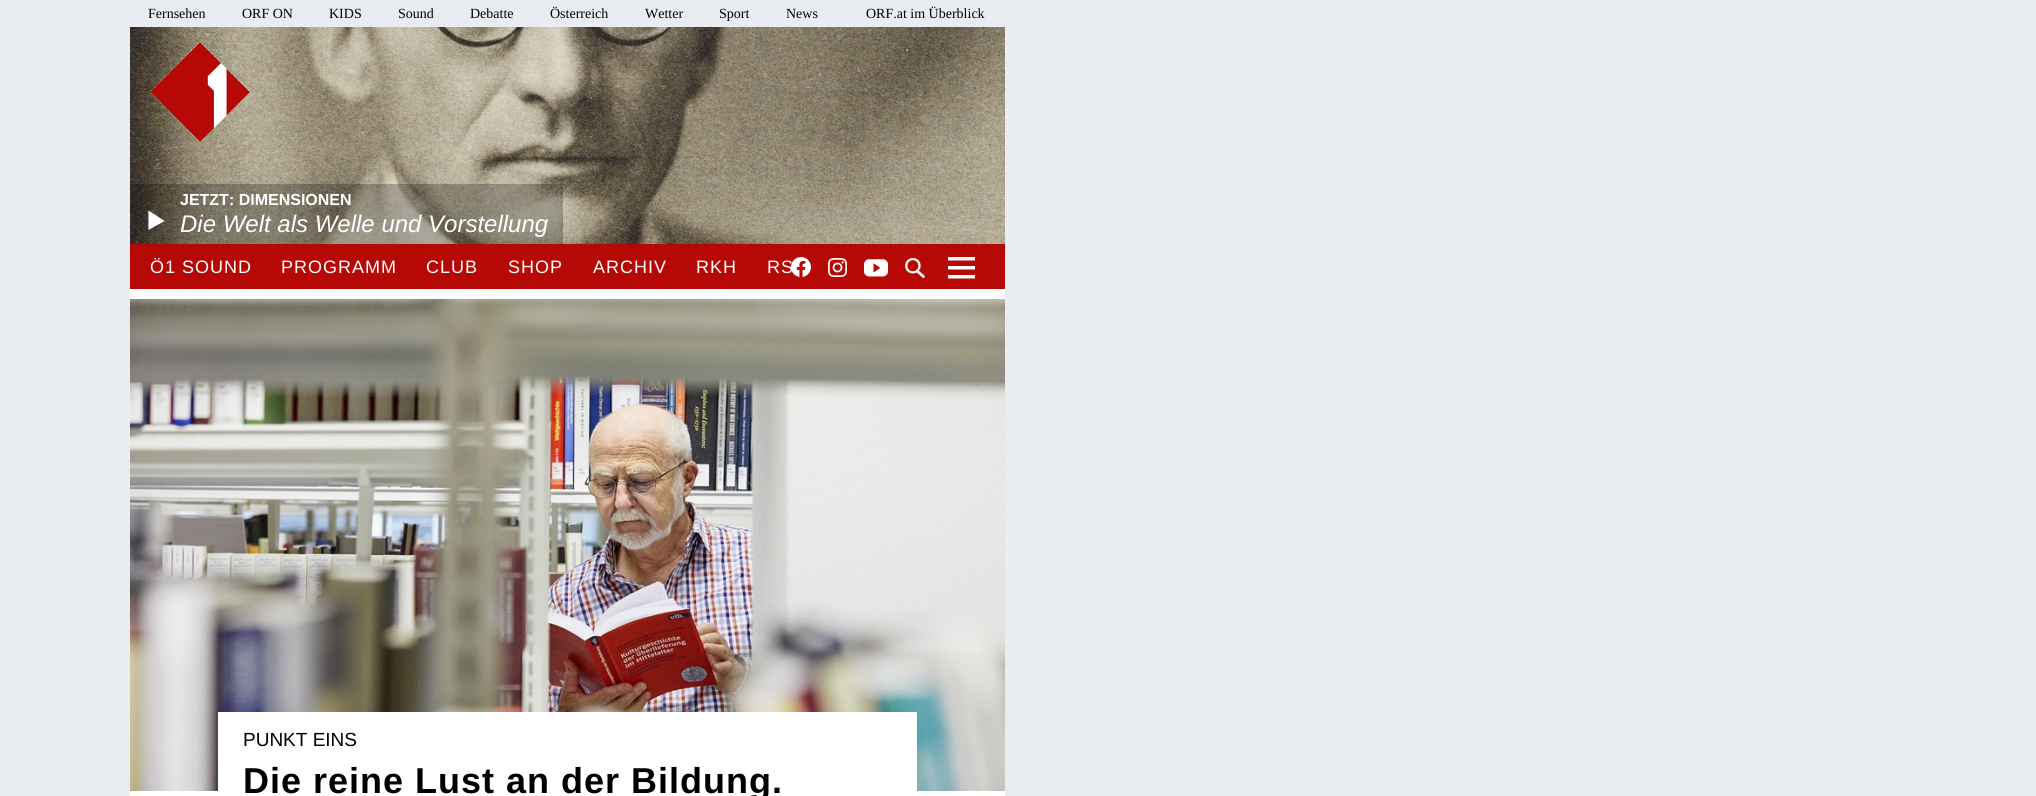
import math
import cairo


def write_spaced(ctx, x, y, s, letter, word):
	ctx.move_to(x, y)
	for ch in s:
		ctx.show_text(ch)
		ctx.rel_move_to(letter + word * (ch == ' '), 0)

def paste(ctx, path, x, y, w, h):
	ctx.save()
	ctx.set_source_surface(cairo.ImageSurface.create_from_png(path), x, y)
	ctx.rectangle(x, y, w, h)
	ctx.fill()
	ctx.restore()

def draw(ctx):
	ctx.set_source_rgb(0.914, 0.922, 0.941)
	ctx.paint()
	ctx.set_source_rgb(1, 1, 1)
	ctx.rectangle(130, 289, 875, 507)
	ctx.fill()
	ctx.select_font_face('Liberation Serif')
	ctx.set_font_size(14)
	ctx.set_source_rgb(0, 0, 0)
	for x, y, s in [
		(148, 18, 'Fernsehen'),
		(242, 18, 'ORF ON'),
		(329, 18, 'KIDS'),
		(398, 18, 'Sound'),
		(470, 18, 'Debatte'),
		(550, 18, 'Österreich'),
		(645, 18, 'Wetter'),
		(719, 18, 'Sport'),
		(786, 18, 'News'),
		(866, 18, 'ORF.at im Überblick'),
	]:
		ctx.move_to(x, y)
		ctx.show_text(s)
	paste(ctx, 'media/2.png', 130, 27, 875, 217)
	paste(ctx, 'media/1.png', 150, 42, 100, 100)
	ctx.set_source_rgba(0, 0, 0, 0.25)
	ctx.rectangle(130, 184, 433, 60)
	ctx.fill()
	ctx.select_font_face('Liberation Sans', cairo.FONT_SLANT_NORMAL, cairo.FONT_WEIGHT_BOLD)
	ctx.set_font_size(16)
	ctx.set_source_rgb(1, 1, 1)
	ctx.move_to(180, 205)
	ctx.show_text('JETZT: DIMENSIONEN')
	paste(ctx, 'media/3.png', 148, 210, 17, 20)
	ctx.select_font_face('Liberation Sans', cairo.FONT_SLANT_ITALIC)
	ctx.set_font_size(24)
	ctx.move_to(180, 232)
	ctx.show_text('Die Welt als Welle und Vorstellung')
	ctx.set_source_rgb(0.714, 0.039, 0.024)
	ctx.rectangle(130, 244, 875, 45)
	ctx.fill()
	ctx.select_font_face('Liberation Sans')
	ctx.set_font_size(18)
	ctx.set_source_rgb(1, 1, 1)
	for x, y, s in [
		(150, 273, 'Ö1 SOUND'),
		(281, 273, 'PROGRAMM'),
		(426, 273, 'CLUB'),
		(508, 273, 'SHOP'),
		(593, 273, 'ARCHIV'),
		(696, 273, 'RKH'),
		(767, 273, 'RS'),
	]:
		write_spaced(ctx, x, y, s, 1, 0)
	paste(ctx, 'media/4.png', 791, 257, 20, 20)
	paste(ctx, 'media/5.png', 828, 258, 19, 19)
	paste(ctx, 'media/6.png', 864, 259, 24, 18)
	paste(ctx, 'media/7.png', 905, 258, 20, 20)
	paste(ctx, 'media/8.png', 948, 257, 27, 22)
	paste(ctx, 'media/9.png', 130, 299, 875, 492)
	ctx.rectangle(218, 712, 699, 79)
	ctx.fill()
	ctx.set_font_size(19)
	ctx.set_source_rgb(0, 0, 0)
	ctx.move_to(243, 746)
	ctx.show_text('PUNKT EINS')
	ctx.select_font_face('Liberation Sans', cairo.FONT_SLANT_NORMAL, cairo.FONT_WEIGHT_BOLD)
	ctx.set_font_size(36)
	write_spaced(ctx, 243, 793, 'Die reine Lust an der Bildung.', 1, 0)


surface = cairo.ImageSurface(cairo.FORMAT_RGB24, 2036, 796)
ctx = cairo.Context(surface)
options = cairo.FontOptions()
options.set_hint_metrics(cairo.HINT_METRICS_OFF)
options.set_hint_style(cairo.HINT_STYLE_NONE)
ctx.set_font_options(options)
ctx.set_miter_limit(4)
draw(ctx)
surface.write_to_png('image.png')
